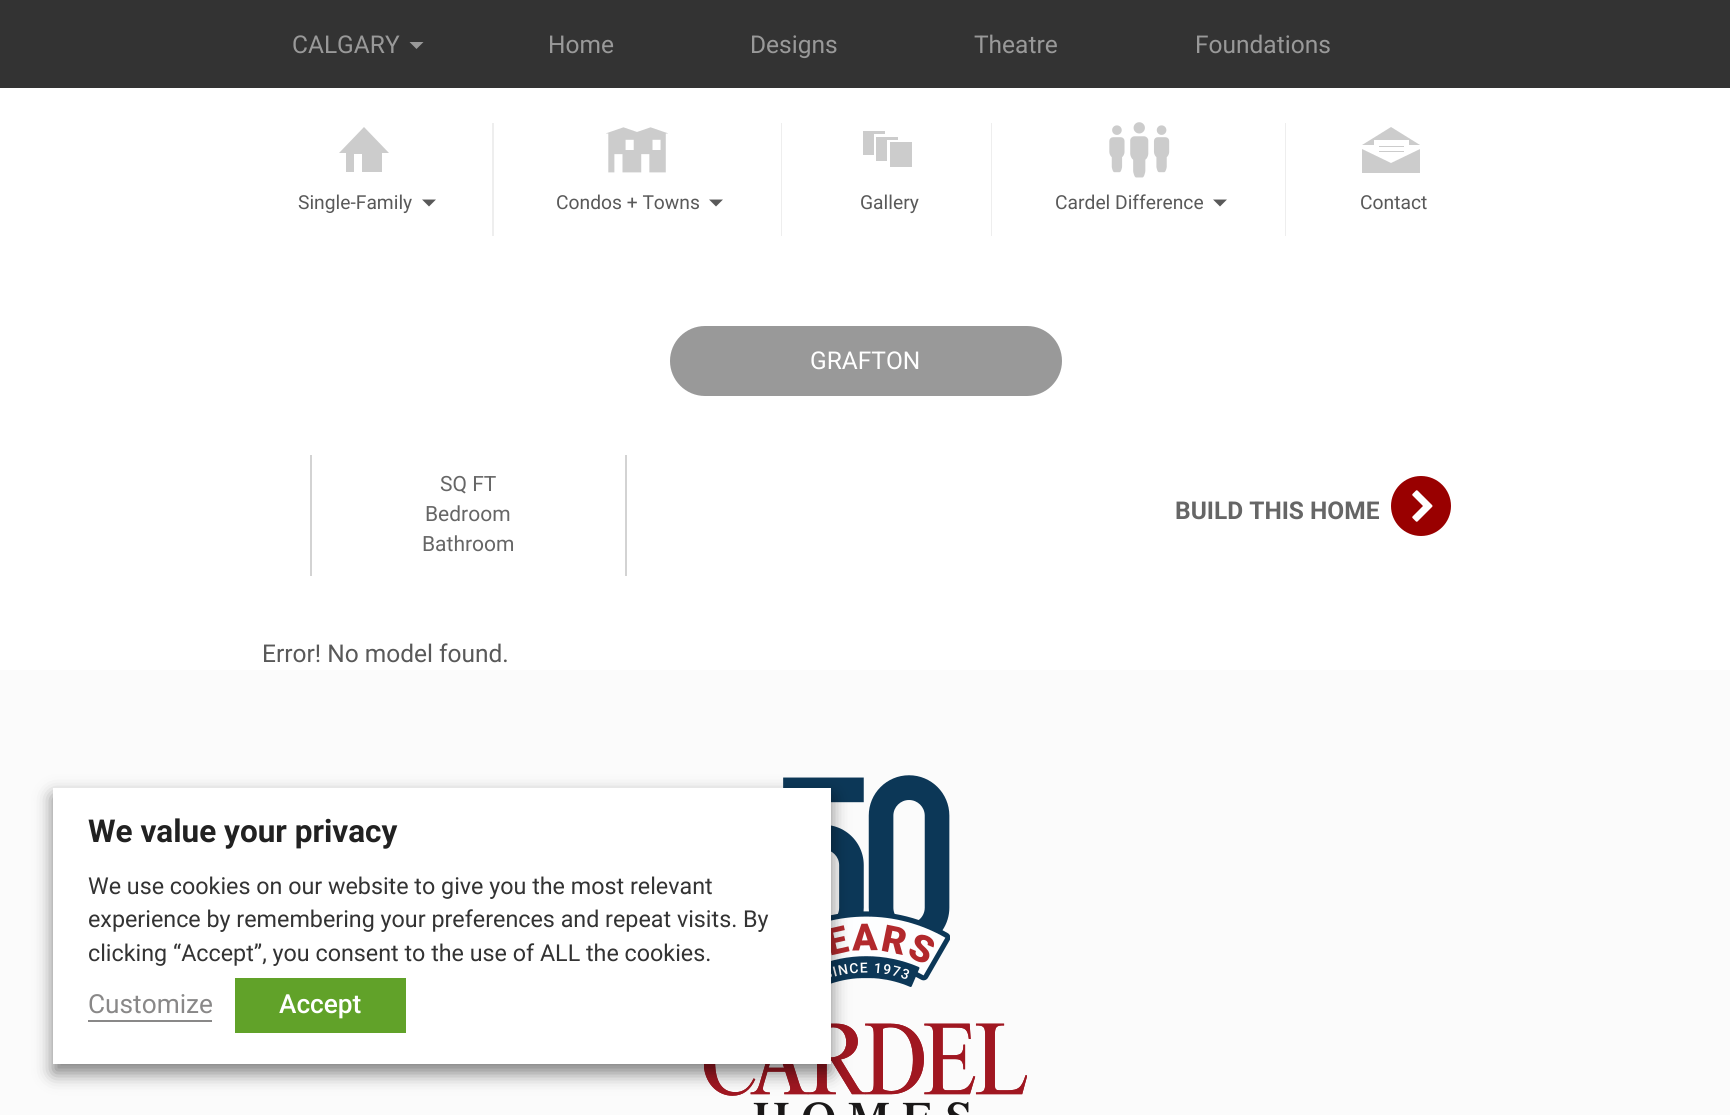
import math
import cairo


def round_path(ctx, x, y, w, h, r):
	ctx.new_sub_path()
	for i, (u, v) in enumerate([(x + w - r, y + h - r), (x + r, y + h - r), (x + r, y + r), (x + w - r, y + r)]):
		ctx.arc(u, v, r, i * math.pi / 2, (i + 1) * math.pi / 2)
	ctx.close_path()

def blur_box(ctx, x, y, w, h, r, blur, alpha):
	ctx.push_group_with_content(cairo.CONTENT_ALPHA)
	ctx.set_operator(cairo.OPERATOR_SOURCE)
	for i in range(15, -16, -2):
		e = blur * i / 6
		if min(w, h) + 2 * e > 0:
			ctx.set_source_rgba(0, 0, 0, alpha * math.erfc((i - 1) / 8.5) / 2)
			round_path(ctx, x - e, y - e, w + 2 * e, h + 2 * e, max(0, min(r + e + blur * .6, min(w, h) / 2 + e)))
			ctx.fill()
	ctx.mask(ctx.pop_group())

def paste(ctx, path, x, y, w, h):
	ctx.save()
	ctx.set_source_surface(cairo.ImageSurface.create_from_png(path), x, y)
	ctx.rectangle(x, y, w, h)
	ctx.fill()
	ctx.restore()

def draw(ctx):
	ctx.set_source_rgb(1, 1, 1)
	ctx.paint()
	ctx.set_source_rgb(0.2, 0.2, 0.2)
	ctx.rectangle(0, 0, 1730, 88)
	ctx.fill()
	ctx.select_font_face('Roboto')
	ctx.set_font_size(24.5)
	ctx.set_source_rgb(0.6, 0.6, 0.6)
	ctx.move_to(292, 53)
	ctx.show_text('CALGARY')
	ctx.new_path()
	ctx.move_to(409.5, 42)
	ctx.line_to(423.5, 42)
	ctx.line_to(416.5, 49)
	ctx.close_path()
	ctx.fill()
	for x, y, s in [
		(548, 53, 'Home'),
		(750, 53, 'Designs'),
		(974, 53, 'Theatre'),
		(1195, 53, 'Foundations'),
	]:
		ctx.move_to(x, y)
		ctx.show_text(s)
	ctx.set_source_rgb(0.933, 0.933, 0.933)
	ctx.rectangle(492, 123, 2, 113)
	ctx.fill()
	ctx.set_source_rgb(0.8, 0.8, 0.8)
	ctx.new_path()
	ctx.move_to(382, 153)
	ctx.line_to(382, 172)
	ctx.line_to(362, 172)
	ctx.line_to(362, 154)
	ctx.line_to(354, 154)
	ctx.line_to(354, 172)
	ctx.line_to(346, 172)
	ctx.line_to(346, 153)
	ctx.line_to(339, 153)
	ctx.line_to(364, 127)
	ctx.line_to(389, 153)
	ctx.close_path()
	ctx.fill()
	ctx.set_font_size(19.25)
	ctx.set_source_rgb(0.349, 0.349, 0.349)
	ctx.move_to(298, 209)
	ctx.show_text('Single-Family')
	ctx.new_path()
	ctx.move_to(422, 199.5)
	ctx.line_to(436, 199.5)
	ctx.line_to(429, 206.5)
	ctx.close_path()
	ctx.fill()
	ctx.set_source_rgb(0.933, 0.933, 0.933)
	ctx.rectangle(781, 123, 1, 113)
	ctx.fill()
	paste(ctx, 'media/1.png', 606, 127, 62, 46)
	ctx.set_source_rgb(0.349, 0.349, 0.349)
	ctx.move_to(556, 209)
	ctx.show_text('Condos + Towns')
	ctx.new_path()
	ctx.move_to(709, 199.5)
	ctx.line_to(723, 199.5)
	ctx.line_to(716, 206.5)
	ctx.close_path()
	ctx.fill()
	ctx.set_source_rgb(0.933, 0.933, 0.933)
	ctx.rectangle(991, 123, 1, 113)
	ctx.fill()
	ctx.set_source_rgb(0.8, 0.8, 0.8)
	ctx.new_path()
	ctx.move_to(912, 142)
	ctx.line_to(912, 167)
	ctx.line_to(890, 167)
	ctx.line_to(890, 142)
	ctx.close_path()
	ctx.move_to(885, 131)
	ctx.line_to(885, 134)
	ctx.line_to(874, 134)
	ctx.line_to(874, 155)
	ctx.line_to(863, 155)
	ctx.line_to(863, 131)
	ctx.close_path()
	ctx.move_to(898, 137)
	ctx.line_to(898, 140)
	ctx.line_to(887, 140)
	ctx.line_to(887, 161)
	ctx.line_to(876, 161)
	ctx.line_to(876, 137)
	ctx.close_path()
	ctx.fill()
	ctx.set_source_rgb(0.349, 0.349, 0.349)
	ctx.move_to(860, 209)
	ctx.show_text('Gallery')
	ctx.set_source_rgb(0.933, 0.933, 0.933)
	ctx.rectangle(1285, 123, 1, 113)
	ctx.fill()
	paste(ctx, 'media/2.png', 1109, 122, 61, 56)
	ctx.set_source_rgb(0.349, 0.349, 0.349)
	ctx.move_to(1055, 209)
	ctx.show_text('Cardel Difference')
	ctx.new_path()
	ctx.move_to(1213, 199.5)
	ctx.line_to(1227, 199.5)
	ctx.line_to(1220, 206.5)
	ctx.close_path()
	ctx.fill()
	ctx.set_source_rgb(0.8, 0.8, 0.8)
	ctx.new_path()
	ctx.move_to(1379, 151)
	ctx.line_to(1404, 151)
	ctx.line_to(1404, 152)
	ctx.line_to(1379, 152)
	ctx.close_path()
	ctx.move_to(1362, 149)
	ctx.line_to(1391, 163)
	ctx.line_to(1420, 149)
	ctx.line_to(1420, 173)
	ctx.line_to(1362, 173)
	ctx.close_path()
	ctx.move_to(1362, 145)
	ctx.line_to(1391, 127)
	ctx.line_to(1420, 145)
	ctx.line_to(1409, 145)
	ctx.line_to(1409, 140)
	ctx.line_to(1374, 140)
	ctx.line_to(1374, 145)
	ctx.close_path()
	ctx.move_to(1379, 146)
	ctx.line_to(1404, 146)
	ctx.line_to(1404, 147)
	ctx.line_to(1379, 147)
	ctx.close_path()
	ctx.fill()
	ctx.set_source_rgb(0.349, 0.349, 0.349)
	ctx.move_to(1360, 209)
	ctx.show_text('Contact')
	ctx.set_source_rgb(0.6, 0.6, 0.6)
	round_path(ctx, 670, 326, 392, 70, 35)
	ctx.fill()
	ctx.set_font_size(24.5)
	ctx.set_source_rgb(1, 1, 1)
	ctx.move_to(810, 369)
	ctx.show_text('GRAFTON')
	ctx.set_source_rgb(0.827, 0.827, 0.827)
	ctx.rectangle(310, 455, 2, 121)
	ctx.fill()
	ctx.rectangle(625, 455, 2, 121)
	ctx.fill()
	ctx.set_font_size(21)
	ctx.set_source_rgb(0.4, 0.4, 0.4)
	for x, y, s in [
		(440, 491, 'SQ FT'),
		(425, 521, 'Bedroom'),
		(422, 551, 'Bathroom'),
	]:
		ctx.move_to(x, y)
		ctx.show_text(s)
	ctx.select_font_face('Roboto', cairo.FONT_SLANT_NORMAL, cairo.FONT_WEIGHT_BOLD)
	ctx.set_font_size(24.5)
	ctx.move_to(1175, 519)
	ctx.show_text('BUILD THIS HOME')
	ctx.set_source_rgb(0.6, 0, 0)
	ctx.new_path()
	ctx.arc(1421, 506, 32.5, 0, 2 * math.pi)
	ctx.fill_preserve()
	ctx.set_source_rgb(1, 1, 1)
	ctx.set_line_width(5)
	ctx.stroke()
	paste(ctx, 'media/3.png', 1412, 490, 21, 32)
	ctx.select_font_face('Roboto')
	ctx.set_source_rgb(0.349, 0.349, 0.349)
	ctx.move_to(262, 662)
	ctx.show_text('Error! No model found.')
	ctx.set_source_rgb(0.984, 0.984, 0.984)
	ctx.rectangle(0, 670, 1730, 445)
	ctx.fill()
	paste(ctx, 'media/4.png', 783, 775, 167, 212)
	paste(ctx, 'media/5.png', 704, 1023, 323, 92)
	ctx.set_source_rgb(0, 0, 0)
	blur_box(ctx, 53, 796, 778, 277, 0, 9, 0.5)
	ctx.set_source_rgb(1, 1, 1)
	ctx.rectangle(53, 788, 778, 276)
	ctx.fill()
	ctx.select_font_face('Roboto', cairo.FONT_SLANT_NORMAL, cairo.FONT_WEIGHT_BOLD)
	ctx.set_font_size(31.5)
	ctx.set_source_rgb(0.129, 0.129, 0.129)
	ctx.move_to(88, 842)
	ctx.show_text('We value your privacy')
	ctx.select_font_face('Roboto')
	ctx.set_font_size(23.3)
	ctx.set_source_rgb(0.2, 0.2, 0.2)
	for x, y, s in [
		(88, 894, 'We use cookies on our website to give you the most relevant'),
		(88, 927, 'experience by remembering your preferences and repeat visits. By'),
		(88, 961, 'clicking “Accept”, you consent to the use of ALL the cookies.'),
	]:
		ctx.move_to(x, y)
		ctx.show_text(s)
	ctx.set_font_size(26.25)
	ctx.set_source_rgb(0.537, 0.533, 0.533)
	ctx.move_to(88, 1013)
	ctx.show_text('Customize')
	ctx.rectangle(88, 1020, 124, 2)
	ctx.fill()
	ctx.set_source_rgb(0.38, 0.635, 0.161)
	ctx.rectangle(235, 978, 171, 55)
	ctx.fill()
	ctx.select_font_face('Roboto Medium')
	ctx.set_source_rgb(1, 1, 1)
	ctx.move_to(279, 1013)
	ctx.show_text('Accept')


surface = cairo.ImageSurface(cairo.FORMAT_RGB24, 1730, 1115)
ctx = cairo.Context(surface)
options = cairo.FontOptions()
options.set_hint_metrics(cairo.HINT_METRICS_OFF)
options.set_hint_style(cairo.HINT_STYLE_NONE)
ctx.set_font_options(options)
ctx.set_miter_limit(4)
draw(ctx)
surface.write_to_png('image.png')
